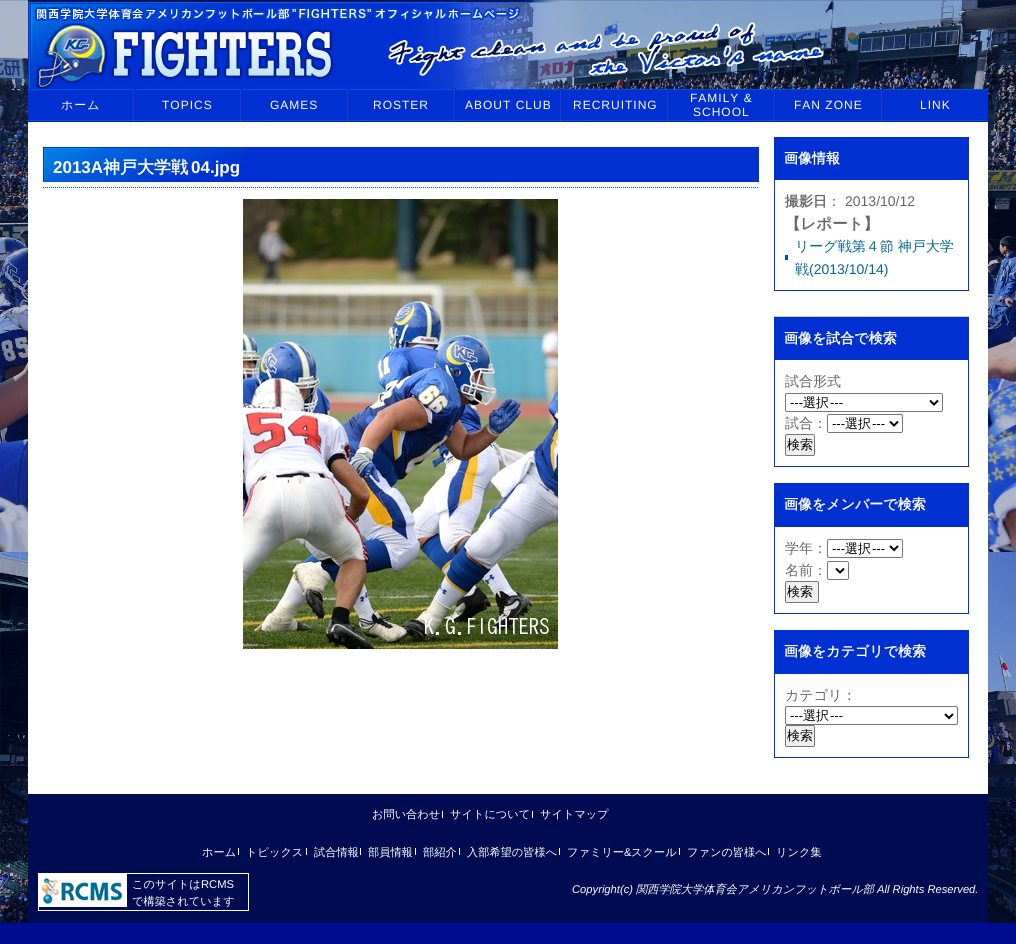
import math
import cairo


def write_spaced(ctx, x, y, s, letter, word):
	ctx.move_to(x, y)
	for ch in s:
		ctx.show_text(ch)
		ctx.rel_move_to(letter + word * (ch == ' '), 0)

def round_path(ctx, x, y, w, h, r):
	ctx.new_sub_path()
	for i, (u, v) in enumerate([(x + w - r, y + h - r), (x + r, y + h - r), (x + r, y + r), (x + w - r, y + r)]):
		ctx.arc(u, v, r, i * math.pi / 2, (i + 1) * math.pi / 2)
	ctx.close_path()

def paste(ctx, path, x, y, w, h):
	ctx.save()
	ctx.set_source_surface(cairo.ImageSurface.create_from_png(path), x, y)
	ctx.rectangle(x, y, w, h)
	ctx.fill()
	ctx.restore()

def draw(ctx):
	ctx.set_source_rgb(1, 1, 1)
	ctx.paint()
	paste(ctx, 'media/1.png', 0, 923, 1016, 21)
	paste(ctx, 'media/2.png', 0, 0, 1016, 923)
	paste(ctx, 'media/3.png', 28, 0, 796, 89)
	paste(ctx, 'media/4.png', 28, 89, 960, 33)
	ctx.new_path()
	ctx.move_to(133.5, 89)
	ctx.line_to(133.5, 122)
	ctx.set_source_rgb(0.031, 0.349, 0.914)
	ctx.set_line_width(1)
	ctx.set_dash([1, 1])
	ctx.stroke()
	ctx.select_font_face('WenQuanYi Zen Hei Medium')
	ctx.set_font_size(12)
	ctx.set_source_rgb(1, 1, 1)
	write_spaced(ctx, 61, 109, 'ホーム', 1, 0)
	ctx.new_path()
	ctx.move_to(240.5, 89)
	ctx.line_to(240.5, 122)
	ctx.set_source_rgb(0.031, 0.349, 0.914)
	ctx.stroke()
	ctx.new_path()
	ctx.move_to(134.5, 89)
	ctx.line_to(134.5, 122)
	ctx.set_source_rgb(0, 0.129, 0.573)
	ctx.stroke()
	ctx.select_font_face('Liberation Sans')
	ctx.set_source_rgb(1, 1, 1)
	write_spaced(ctx, 162, 109, 'TOPICS', 1, 0)
	ctx.new_path()
	ctx.move_to(347.5, 89)
	ctx.line_to(347.5, 122)
	ctx.set_source_rgb(0.031, 0.349, 0.914)
	ctx.stroke()
	ctx.new_path()
	ctx.move_to(241.5, 89)
	ctx.line_to(241.5, 122)
	ctx.set_source_rgb(0, 0.129, 0.573)
	ctx.stroke()
	ctx.set_source_rgb(1, 1, 1)
	write_spaced(ctx, 270, 109, 'GAMES', 1, 0)
	ctx.new_path()
	ctx.move_to(454.5, 89)
	ctx.line_to(454.5, 122)
	ctx.set_source_rgb(0.031, 0.349, 0.914)
	ctx.stroke()
	ctx.new_path()
	ctx.move_to(348.5, 89)
	ctx.line_to(348.5, 122)
	ctx.set_source_rgb(0, 0.129, 0.573)
	ctx.stroke()
	ctx.set_source_rgb(1, 1, 1)
	write_spaced(ctx, 373, 109, 'ROSTER', 1, 0)
	ctx.new_path()
	ctx.move_to(560.5, 89)
	ctx.line_to(560.5, 122)
	ctx.set_source_rgb(0.031, 0.349, 0.914)
	ctx.stroke()
	ctx.new_path()
	ctx.move_to(455.5, 89)
	ctx.line_to(455.5, 122)
	ctx.set_source_rgb(0, 0.129, 0.573)
	ctx.stroke()
	ctx.set_source_rgb(1, 1, 1)
	write_spaced(ctx, 465, 109, 'ABOUT CLUB', 1, 0)
	ctx.new_path()
	ctx.move_to(667.5, 89)
	ctx.line_to(667.5, 122)
	ctx.set_source_rgb(0.031, 0.349, 0.914)
	ctx.stroke()
	ctx.new_path()
	ctx.move_to(561.5, 89)
	ctx.line_to(561.5, 122)
	ctx.set_source_rgb(0, 0.129, 0.573)
	ctx.stroke()
	ctx.set_source_rgb(1, 1, 1)
	write_spaced(ctx, 573, 109, 'RECRUITING', 1, 0)
	ctx.new_path()
	ctx.move_to(774.5, 89)
	ctx.line_to(774.5, 122)
	ctx.set_source_rgb(0.031, 0.349, 0.914)
	ctx.stroke()
	ctx.new_path()
	ctx.move_to(668.5, 89)
	ctx.line_to(668.5, 122)
	ctx.set_source_rgb(0, 0.129, 0.573)
	ctx.stroke()
	ctx.set_source_rgb(1, 1, 1)
	write_spaced(ctx, 690, 102, 'FAMILY &', 1, 0)
	write_spaced(ctx, 693, 116, 'SCHOOL', 1, 0)
	ctx.new_path()
	ctx.move_to(881.5, 89)
	ctx.line_to(881.5, 122)
	ctx.set_source_rgb(0.031, 0.349, 0.914)
	ctx.stroke()
	ctx.new_path()
	ctx.move_to(775.5, 89)
	ctx.line_to(775.5, 122)
	ctx.set_source_rgb(0, 0.129, 0.573)
	ctx.stroke()
	ctx.set_source_rgb(1, 1, 1)
	write_spaced(ctx, 794, 109, 'FAN ZONE', 1, 0)
	ctx.new_path()
	ctx.move_to(882.5, 89)
	ctx.line_to(882.5, 122)
	ctx.set_source_rgb(0, 0.129, 0.573)
	ctx.stroke()
	ctx.set_source_rgb(1, 1, 1)
	write_spaced(ctx, 920, 109, 'LINK', 1, 0)
	ctx.rectangle(28, 122, 960, 672)
	ctx.fill()
	paste(ctx, 'media/5.png', 43, 147, 716, 41)
	ctx.select_font_face('Liberation Sans', cairo.FONT_SLANT_NORMAL, cairo.FONT_WEIGHT_BOLD)
	ctx.set_font_size(17)
	ctx.move_to(53, 173)
	ctx.show_text('2013A')
	ctx.select_font_face('WenQuanYi Zen Hei', cairo.FONT_SLANT_NORMAL, cairo.FONT_WEIGHT_BOLD)
	ctx.move_to(103, 173)
	ctx.show_text('神戸大学戦')
	ctx.select_font_face('Liberation Sans', cairo.FONT_SLANT_NORMAL, cairo.FONT_WEIGHT_BOLD)
	ctx.move_to(191, 173)
	ctx.show_text('04.jpg')
	paste(ctx, 'media/6.png', 243, 199, 315, 450)
	ctx.set_source_rgb(0.8, 0.8, 0.8)
	ctx.rectangle(774, 316, 195, 1)
	ctx.fill()
	ctx.set_source_rgb(0, 0.188, 0.82)
	ctx.rectangle(774, 137, 195, 42)
	ctx.fill()
	ctx.select_font_face('WenQuanYi Zen Hei', cairo.FONT_SLANT_NORMAL, cairo.FONT_WEIGHT_BOLD)
	ctx.set_font_size(14)
	ctx.set_source_rgb(1, 1, 1)
	ctx.move_to(784, 163)
	ctx.show_text('画像情報')
	ctx.rectangle(774.5, 179.5, 194, 111)
	ctx.set_source_rgb(0, 0.188, 0.82)
	ctx.set_dash([])
	ctx.stroke()
	ctx.set_source_rgb(0.4, 0.4, 0.4)
	ctx.move_to(785, 206)
	ctx.show_text('撮影日')
	ctx.select_font_face('WenQuanYi Zen Hei Medium')
	ctx.move_to(827, 206)
	ctx.show_text('：')
	ctx.select_font_face('Liberation Sans')
	ctx.move_to(845, 206)
	ctx.show_text('2013/10/12')
	ctx.select_font_face('WenQuanYi Zen Hei', cairo.FONT_SLANT_NORMAL, cairo.FONT_WEIGHT_BOLD)
	ctx.set_font_size(15.5)
	ctx.move_to(785, 229)
	ctx.show_text('【レポート】')
	ctx.set_source_rgb(0.012, 0.306, 0.639)
	ctx.rectangle(785, 255, 3, 5)
	ctx.fill()
	ctx.select_font_face('WenQuanYi Zen Hei Medium')
	ctx.set_font_size(14)
	ctx.set_source_rgb(0, 0.4, 0.6)
	ctx.move_to(795, 251)
	ctx.show_text('リーグ戦第４節 神戸大学')
	ctx.move_to(795, 274)
	ctx.show_text('戦')
	ctx.select_font_face('Liberation Sans')
	ctx.move_to(809, 274)
	ctx.show_text('(2013/10/14)')
	ctx.set_source_rgb(0, 0.188, 0.82)
	ctx.rectangle(774, 317, 195, 42)
	ctx.fill()
	ctx.select_font_face('WenQuanYi Zen Hei', cairo.FONT_SLANT_NORMAL, cairo.FONT_WEIGHT_BOLD)
	ctx.set_source_rgb(1, 1, 1)
	ctx.move_to(784, 343)
	ctx.show_text('画像を試合で検索')
	ctx.rectangle(774.5, 359.5, 194, 107)
	ctx.set_source_rgb(0, 0.188, 0.82)
	ctx.stroke()
	ctx.select_font_face('WenQuanYi Zen Hei Medium')
	ctx.set_source_rgb(0.4, 0.4, 0.4)
	ctx.move_to(785, 386)
	ctx.show_text('試合形式')
	round_path(ctx, 785.5, 393.5, 157, 18, 1.5)
	ctx.set_source_rgb(0.463, 0.463, 0.463)
	ctx.stroke()
	ctx.new_path()
	ctx.move_to(930, 400.5)
	ctx.line_to(934, 404.5)
	ctx.line_to(938, 400.5)
	ctx.set_source_rgb(0, 0, 0)
	ctx.set_line_width(2)
	ctx.stroke()
	ctx.select_font_face('Liberation Sans')
	ctx.set_font_size(13)
	ctx.move_to(790, 407)
	ctx.show_text('---')
	ctx.select_font_face('WenQuanYi Zen Hei Medium')
	ctx.move_to(803, 407)
	ctx.show_text('選択')
	ctx.select_font_face('Liberation Sans')
	ctx.move_to(830, 407)
	ctx.show_text('---')
	ctx.select_font_face('WenQuanYi Zen Hei Medium')
	ctx.set_font_size(14)
	ctx.set_source_rgb(0.4, 0.4, 0.4)
	ctx.move_to(785, 428)
	ctx.show_text('試合：')
	round_path(ctx, 827.5, 414.5, 75, 18, 1.5)
	ctx.set_source_rgb(0.463, 0.463, 0.463)
	ctx.set_line_width(1)
	ctx.stroke()
	ctx.new_path()
	ctx.move_to(890, 421.5)
	ctx.line_to(894, 425.5)
	ctx.line_to(898, 421.5)
	ctx.set_source_rgb(0, 0, 0)
	ctx.set_line_width(2)
	ctx.stroke()
	ctx.select_font_face('Liberation Sans')
	ctx.set_font_size(13)
	ctx.move_to(832, 428)
	ctx.show_text('---')
	ctx.select_font_face('WenQuanYi Zen Hei Medium')
	ctx.move_to(845, 428)
	ctx.show_text('選択')
	ctx.select_font_face('Liberation Sans')
	ctx.move_to(872, 428)
	ctx.show_text('---')
	ctx.set_source_rgb(0.937, 0.937, 0.937)
	round_path(ctx, 785.5, 434.5, 29, 21, 1.5)
	ctx.fill_preserve()
	ctx.set_source_rgb(0.463, 0.463, 0.463)
	ctx.set_line_width(1)
	ctx.stroke()
	ctx.select_font_face('WenQuanYi Zen Hei Medium')
	ctx.set_source_rgb(0, 0, 0)
	ctx.move_to(787, 449)
	ctx.show_text('検索')
	ctx.set_source_rgb(0, 0.188, 0.82)
	ctx.rectangle(774, 483, 195, 43)
	ctx.fill()
	ctx.select_font_face('WenQuanYi Zen Hei', cairo.FONT_SLANT_NORMAL, cairo.FONT_WEIGHT_BOLD)
	ctx.set_font_size(14)
	ctx.set_source_rgb(1, 1, 1)
	ctx.move_to(784, 509)
	ctx.show_text('画像をメンバーで検索')
	ctx.rectangle(774.5, 526.5, 194, 87)
	ctx.set_source_rgb(0, 0.188, 0.82)
	ctx.stroke()
	ctx.select_font_face('WenQuanYi Zen Hei Medium')
	ctx.set_source_rgb(0.4, 0.4, 0.4)
	ctx.move_to(785, 553)
	ctx.show_text('学年：')
	round_path(ctx, 827.5, 539.5, 75, 18, 1.5)
	ctx.set_source_rgb(0.463, 0.463, 0.463)
	ctx.stroke()
	ctx.new_path()
	ctx.move_to(890, 546)
	ctx.line_to(894, 550)
	ctx.line_to(898, 546)
	ctx.set_source_rgb(0, 0, 0)
	ctx.set_line_width(2)
	ctx.stroke()
	ctx.select_font_face('Liberation Sans')
	ctx.set_font_size(13)
	ctx.move_to(832, 553)
	ctx.show_text('---')
	ctx.select_font_face('WenQuanYi Zen Hei Medium')
	ctx.move_to(845, 553)
	ctx.show_text('選択')
	ctx.select_font_face('Liberation Sans')
	ctx.move_to(872, 553)
	ctx.show_text('---')
	ctx.select_font_face('WenQuanYi Zen Hei Medium')
	ctx.set_font_size(14)
	ctx.set_source_rgb(0.4, 0.4, 0.4)
	ctx.move_to(785, 575)
	ctx.show_text('名前：')
	round_path(ctx, 827.5, 561.5, 21, 18, 1.5)
	ctx.set_source_rgb(0.463, 0.463, 0.463)
	ctx.set_line_width(1)
	ctx.stroke()
	ctx.new_path()
	ctx.move_to(836, 568.5)
	ctx.line_to(840, 572.5)
	ctx.line_to(844, 568.5)
	ctx.set_source_rgb(0, 0, 0)
	ctx.set_line_width(2)
	ctx.stroke()
	ctx.set_source_rgb(0.937, 0.937, 0.937)
	round_path(ctx, 785.5, 581.5, 33, 21, 1.5)
	ctx.fill_preserve()
	ctx.set_source_rgb(0.463, 0.463, 0.463)
	ctx.set_line_width(1)
	ctx.stroke()
	ctx.set_font_size(13)
	ctx.set_source_rgb(0, 0, 0)
	ctx.move_to(787, 596)
	ctx.show_text('検索')
	ctx.set_source_rgb(0, 0.188, 0.82)
	ctx.rectangle(774, 630, 195, 43)
	ctx.fill()
	ctx.select_font_face('WenQuanYi Zen Hei', cairo.FONT_SLANT_NORMAL, cairo.FONT_WEIGHT_BOLD)
	ctx.set_font_size(14)
	ctx.set_source_rgb(1, 1, 1)
	ctx.move_to(784, 656)
	ctx.show_text('画像をカテゴリで検索')
	ctx.rectangle(774.5, 673.5, 194, 84)
	ctx.set_source_rgb(0, 0.188, 0.82)
	ctx.stroke()
	ctx.select_font_face('WenQuanYi Zen Hei Medium')
	ctx.set_source_rgb(0.4, 0.4, 0.4)
	ctx.move_to(785, 700)
	ctx.show_text('カテゴリ：')
	round_path(ctx, 785.5, 706.5, 172, 18, 1.5)
	ctx.set_source_rgb(0.463, 0.463, 0.463)
	ctx.stroke()
	ctx.new_path()
	ctx.move_to(945, 714)
	ctx.line_to(949, 718)
	ctx.line_to(953, 714)
	ctx.set_source_rgb(0, 0, 0)
	ctx.set_line_width(2)
	ctx.stroke()
	ctx.select_font_face('Liberation Sans')
	ctx.set_font_size(13)
	ctx.move_to(790, 720)
	ctx.show_text('---')
	ctx.select_font_face('WenQuanYi Zen Hei Medium')
	ctx.move_to(803, 720)
	ctx.show_text('選択')
	ctx.select_font_face('Liberation Sans')
	ctx.move_to(830, 720)
	ctx.show_text('---')
	ctx.set_source_rgb(0.937, 0.937, 0.937)
	round_path(ctx, 785.5, 725.5, 29, 21, 1.5)
	ctx.fill_preserve()
	ctx.set_source_rgb(0.463, 0.463, 0.463)
	ctx.set_line_width(1)
	ctx.stroke()
	ctx.select_font_face('WenQuanYi Zen Hei Medium')
	ctx.set_source_rgb(0, 0, 0)
	ctx.move_to(787, 740)
	ctx.show_text('検索')
	ctx.set_source_rgb(0, 0.047, 0.318)
	ctx.rectangle(28, 794, 960, 129)
	ctx.fill()
	ctx.set_font_size(11.2)
	ctx.set_source_rgb(1, 1, 1)
	ctx.move_to(372, 818)
	ctx.show_text('お問い合わせ')
	ctx.rectangle(442, 811, 1, 7)
	ctx.fill()
	ctx.move_to(450, 818)
	ctx.show_text('サイトについて')
	ctx.rectangle(532, 811, 1, 7)
	ctx.fill()
	ctx.move_to(540, 818)
	ctx.show_text('サイトマップ')
	ctx.move_to(202, 856)
	ctx.show_text('ホーム')
	ctx.rectangle(238, 848, 1, 7)
	ctx.fill()
	ctx.move_to(246, 856)
	ctx.show_text('トピックス')
	ctx.rectangle(306, 848, 1, 7)
	ctx.fill()
	ctx.move_to(314, 856)
	ctx.show_text('試合情報')
	ctx.rectangle(360, 848, 1, 7)
	ctx.fill()
	ctx.move_to(368, 856)
	ctx.show_text('部員情報')
	ctx.rectangle(415, 848, 1, 7)
	ctx.fill()
	ctx.move_to(423, 856)
	ctx.show_text('部紹介')
	ctx.rectangle(459, 848, 1, 7)
	ctx.fill()
	ctx.move_to(467, 856)
	ctx.show_text('入部希望の皆様へ')
	ctx.rectangle(559, 848, 1, 7)
	ctx.fill()
	ctx.move_to(567, 856)
	ctx.show_text('ファミリー')
	ctx.select_font_face('Liberation Sans')
	ctx.move_to(624, 856)
	ctx.show_text('&')
	ctx.select_font_face('WenQuanYi Zen Hei Medium')
	ctx.move_to(631, 856)
	ctx.show_text('スクール')
	ctx.rectangle(679, 848, 1, 7)
	ctx.fill()
	ctx.move_to(687, 856)
	ctx.show_text('ファンの皆様へ')
	ctx.rectangle(768, 848, 1, 7)
	ctx.fill()
	ctx.move_to(776, 856)
	ctx.show_text('リンク集')
	ctx.rectangle(38.5, 873.5, 210, 37)
	ctx.stroke()
	paste(ctx, 'media/7.png', 39, 874, 88, 33)
	ctx.move_to(132, 888)
	ctx.show_text('このサイトは')
	ctx.select_font_face('Liberation Sans')
	ctx.move_to(201, 888)
	ctx.show_text('RCMS')
	ctx.select_font_face('WenQuanYi Zen Hei Medium')
	ctx.move_to(132, 905)
	ctx.show_text('で構築されています')
	ctx.select_font_face('Liberation Sans', cairo.FONT_SLANT_ITALIC)
	ctx.move_to(572, 893)
	ctx.show_text('Copyright(c)')
	ctx.select_font_face('WenQuanYi Zen Hei Medium', cairo.FONT_SLANT_ITALIC)
	ctx.move_to(636, 893)
	ctx.show_text('関西学院大学体育会アメリカンフットボール部')
	ctx.select_font_face('Liberation Sans', cairo.FONT_SLANT_ITALIC)
	ctx.move_to(877, 893)
	ctx.show_text('All Rights Reserved.')


surface = cairo.ImageSurface(cairo.FORMAT_RGB24, 1016, 944)
ctx = cairo.Context(surface)
options = cairo.FontOptions()
options.set_hint_metrics(cairo.HINT_METRICS_OFF)
options.set_hint_style(cairo.HINT_STYLE_NONE)
ctx.set_font_options(options)
ctx.set_miter_limit(4)
draw(ctx)
surface.write_to_png('image.png')
